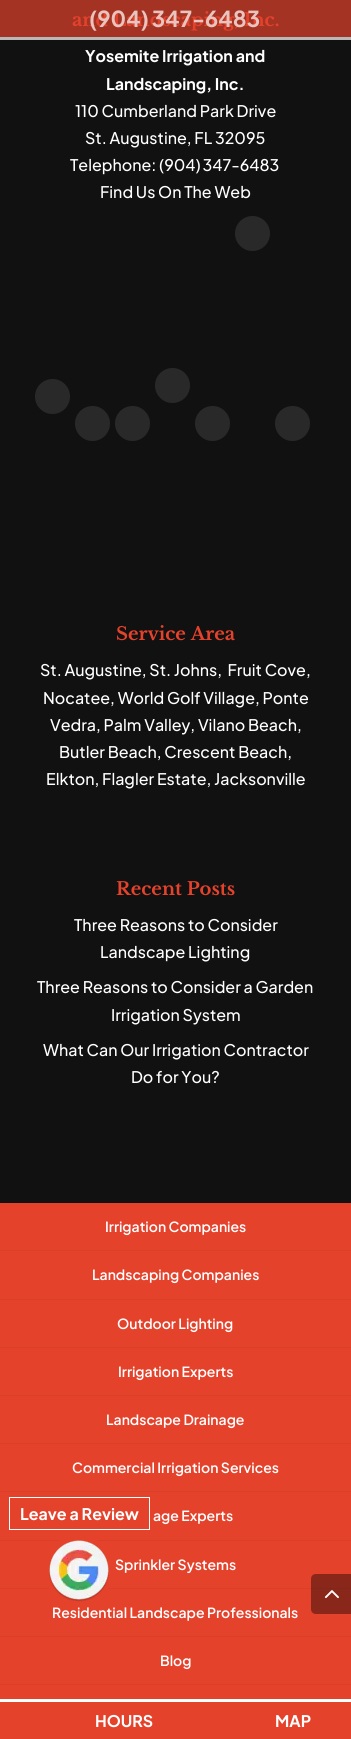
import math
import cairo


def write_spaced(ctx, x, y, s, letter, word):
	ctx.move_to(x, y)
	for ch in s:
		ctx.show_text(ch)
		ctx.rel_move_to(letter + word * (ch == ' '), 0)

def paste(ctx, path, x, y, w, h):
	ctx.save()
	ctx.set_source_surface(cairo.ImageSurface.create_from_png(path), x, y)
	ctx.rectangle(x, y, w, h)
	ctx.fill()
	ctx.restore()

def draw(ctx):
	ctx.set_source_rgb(0.067, 0.067, 0.067)
	ctx.paint()
	ctx.set_source_rgb(0.647, 0.2, 0.141)
	ctx.rectangle(0, 0, 351, 37)
	ctx.fill()
	ctx.set_source_rgb(0.722, 0.722, 0.722)
	ctx.rectangle(0, 37, 351, 3)
	ctx.fill()
	ctx.select_font_face('Libre Baskerville', cairo.FONT_SLANT_NORMAL, cairo.FONT_WEIGHT_BOLD)
	ctx.set_font_size(18)
	ctx.set_source_rgb(0.898, 0.259, 0.173)
	ctx.move_to(72, 26)
	ctx.show_text('and Landscaping, Inc.')
	ctx.select_font_face('Plus Jakarta Sans', cairo.FONT_SLANT_NORMAL, cairo.FONT_WEIGHT_BOLD)
	ctx.set_font_size(22)
	ctx.set_source_rgb(0.914, 0.765, 0.745)
	write_spaced(ctx, 89, 27, '(904) 347-6483', 0, -1)
	ctx.set_source_rgb(0.898, 0.259, 0.173)
	ctx.rectangle(0, 1203, 351, 496)
	ctx.fill()
	ctx.rectangle(9.5, 1497.5, 140, 32)
	ctx.set_source_rgb(1, 1, 1)
	ctx.set_line_width(1)
	ctx.stroke()
	ctx.set_font_size(16)
	ctx.move_to(20, 1520)
	ctx.show_text('Leave a Review')
	ctx.set_source_rgb(0.855, 0.247, 0.165)
	ctx.rectangle(0, 1540, 351, 1)
	ctx.fill()
	ctx.rectangle(0, 1588, 351, 1)
	ctx.fill()
	ctx.set_source_rgb(0.898, 0.259, 0.173)
	ctx.arc(79, 1570, 33.5, 0, 2 * math.pi)
	ctx.fill_preserve()
	ctx.set_line_width(3)
	ctx.stroke()
	paste(ctx, 'media/1.png', 49, 1540, 60, 62)
	ctx.rectangle(0, 1702, 351, 37)
	ctx.fill()
	ctx.set_source_rgb(1, 1, 1)
	ctx.rectangle(0, 1699, 351, 3)
	ctx.fill()
	for x, y, s in [
		(95, 1727, 'HOURS'),
		(275, 1727, 'MAP'),
		(85, 62, 'Yosemite Irrigation and'),
		(106, 90, 'Landscaping, Inc.'),
	]:
		ctx.move_to(x, y)
		ctx.show_text(s)
	ctx.select_font_face('Plus Jakarta Sans Medium')
	for x, y, s in [
		(75, 117, '110 Cumberland Park Drive'),
		(85, 144, 'St. Augustine, FL 32095'),
		(70, 171, 'Telephone:'),
	]:
		ctx.move_to(x, y)
		ctx.show_text(s)
	write_spaced(ctx, 159, 171, '(904) 347-6483', 0, -1)
	ctx.move_to(100, 198)
	ctx.show_text('Find Us On The Web')
	ctx.set_source_rgb(0.161, 0.161, 0.161)
	ctx.new_path()
	ctx.arc(252.5, 233.5, 17.5, 0, 2 * math.pi)
	ctx.fill()
	ctx.arc(52.5, 396.5, 17.5, 0, 2 * math.pi)
	ctx.fill()
	ctx.arc(172.5, 385.5, 17.5, 0, 2 * math.pi)
	ctx.fill()
	ctx.arc(92.5, 423.5, 17.5, 0, 2 * math.pi)
	ctx.fill()
	ctx.arc(132.5, 423.5, 17.5, 0, 2 * math.pi)
	ctx.fill()
	ctx.arc(212.5, 423.5, 17.5, 0, 2 * math.pi)
	ctx.fill()
	ctx.arc(292.5, 423.5, 17.5, 0, 2 * math.pi)
	ctx.fill()
	ctx.select_font_face('Libre Baskerville', cairo.FONT_SLANT_NORMAL, cairo.FONT_WEIGHT_BOLD)
	ctx.set_font_size(18)
	ctx.set_source_rgb(0.898, 0.259, 0.173)
	ctx.move_to(116, 640)
	ctx.show_text('Service Area')
	ctx.select_font_face('Plus Jakarta Sans Medium')
	ctx.set_font_size(16)
	ctx.set_source_rgb(1, 1, 1)
	for x, y, s in [
		(40, 676, 'St. Augustine, St. Johns,  Fruit Cove,'),
		(43, 704, 'Nocatee, World Golf Village, Ponte'),
		(50, 731, 'Vedra, Palm Valley, Vilano Beach,'),
		(59, 758, 'Butler Beach, Crescent Beach,'),
		(46, 785, 'Elkton, Flagler Estate, Jacksonville'),
	]:
		ctx.move_to(x, y)
		ctx.show_text(s)
	ctx.select_font_face('Libre Baskerville', cairo.FONT_SLANT_NORMAL, cairo.FONT_WEIGHT_BOLD)
	ctx.set_font_size(18)
	ctx.set_source_rgb(0.898, 0.259, 0.173)
	ctx.move_to(116, 895)
	ctx.show_text('Recent Posts')
	ctx.select_font_face('Plus Jakarta Sans Medium')
	ctx.set_font_size(16)
	ctx.set_source_rgb(1, 1, 1)
	for x, y, s in [
		(74, 931, 'Three Reasons to Consider'),
		(100, 958, 'Landscape Lighting'),
		(37, 993, 'Three Reasons to Consider a Garden'),
		(111, 1021, 'Irrigation System'),
		(43, 1056, 'What Can Our Irrigation Contractor'),
		(131, 1083, 'Do for You?'),
	]:
		ctx.move_to(x, y)
		ctx.show_text(s)
	ctx.set_source_rgb(0.855, 0.247, 0.165)
	ctx.rectangle(0, 1250, 351, 1)
	ctx.fill()
	ctx.select_font_face('Plus Jakarta Sans SemiBold')
	ctx.set_font_size(14)
	ctx.set_source_rgb(1, 1, 1)
	ctx.move_to(105, 1232)
	ctx.show_text('Irrigation Companies')
	ctx.set_source_rgb(0.855, 0.247, 0.165)
	ctx.rectangle(0, 1299, 351, 1)
	ctx.fill()
	ctx.set_source_rgb(1, 1, 1)
	ctx.move_to(92, 1280)
	ctx.show_text('Landscaping Companies')
	ctx.set_source_rgb(0.855, 0.247, 0.165)
	ctx.rectangle(0, 1347, 351, 1)
	ctx.fill()
	ctx.set_source_rgb(1, 1, 1)
	ctx.move_to(117, 1329)
	ctx.show_text('Outdoor Lighting')
	ctx.set_source_rgb(0.855, 0.247, 0.165)
	ctx.rectangle(0, 1395, 351, 1)
	ctx.fill()
	ctx.set_source_rgb(1, 1, 1)
	ctx.move_to(118, 1377)
	ctx.show_text('Irrigation Experts')
	ctx.set_source_rgb(0.855, 0.247, 0.165)
	ctx.rectangle(0, 1443, 351, 1)
	ctx.fill()
	ctx.set_source_rgb(1, 1, 1)
	ctx.move_to(106, 1425)
	ctx.show_text('Landscape Drainage')
	ctx.set_source_rgb(0.855, 0.247, 0.165)
	ctx.rectangle(0, 1491, 351, 1)
	ctx.fill()
	ctx.set_source_rgb(1, 1, 1)
	for x, y, s in [
		(72, 1473, 'Commercial Irrigation Services'),
		(153, 1521, 'age Experts'),
		(115, 1570, 'Sprinkler Systems'),
	]:
		ctx.move_to(x, y)
		ctx.show_text(s)
	ctx.set_source_rgb(0.855, 0.247, 0.165)
	ctx.rectangle(0, 1636, 351, 1)
	ctx.fill()
	ctx.set_source_rgb(1, 1, 1)
	ctx.move_to(52, 1618)
	ctx.show_text('Residential Landscape Professionals')
	ctx.set_source_rgb(0.855, 0.247, 0.165)
	ctx.rectangle(0, 1684, 351, 1)
	ctx.fill()
	ctx.set_source_rgb(1, 1, 1)
	ctx.move_to(160, 1666)
	ctx.show_text('Blog')
	ctx.set_source_rgba(0, 0, 0, 0.4)
	ctx.new_path()
	ctx.move_to(316, 1574)
	ctx.line_to(351, 1574)
	ctx.line_to(351, 1614)
	ctx.line_to(316, 1614)
	ctx.curve_to(313, 1614, 311, 1612, 311, 1609)
	ctx.line_to(311, 1579)
	ctx.curve_to(311, 1576, 313, 1574, 316, 1574)
	ctx.close_path()
	ctx.fill()
	paste(ctx, 'media/2.png', 324, 1590, 15, 9)


surface = cairo.ImageSurface(cairo.FORMAT_RGB24, 351, 1739)
ctx = cairo.Context(surface)
options = cairo.FontOptions()
options.set_hint_metrics(cairo.HINT_METRICS_OFF)
options.set_hint_style(cairo.HINT_STYLE_NONE)
ctx.set_font_options(options)
ctx.set_miter_limit(4)
draw(ctx)
surface.write_to_png('image.png')
